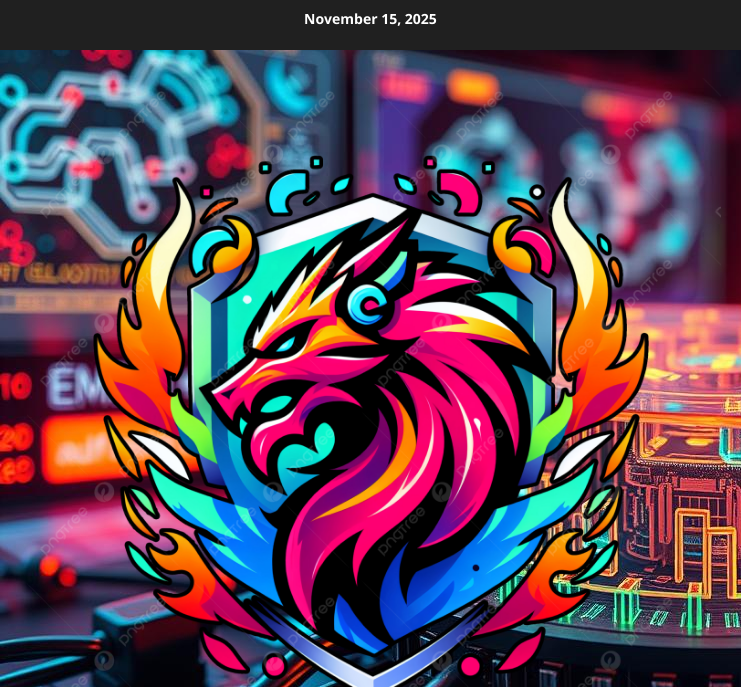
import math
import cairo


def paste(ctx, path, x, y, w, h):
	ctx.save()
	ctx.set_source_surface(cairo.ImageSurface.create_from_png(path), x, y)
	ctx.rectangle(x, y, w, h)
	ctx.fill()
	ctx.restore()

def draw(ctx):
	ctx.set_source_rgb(1, 1, 1)
	ctx.paint()
	paste(ctx, 'media/1.png', 0, 50, 741, 637)
	ctx.set_source_rgb(0.125, 0.125, 0.125)
	ctx.rectangle(0, 0, 741, 50)
	ctx.fill()
	ctx.select_font_face('Open Sans', cairo.FONT_SLANT_NORMAL, cairo.FONT_WEIGHT_BOLD)
	ctx.set_font_size(14)
	ctx.set_source_rgb(1, 1, 1)
	ctx.move_to(304, 24)
	ctx.show_text('November 15, 2025')
	paste(ctx, 'media/2.png', 27, 78, 694, 609)


surface = cairo.ImageSurface(cairo.FORMAT_RGB24, 741, 687)
ctx = cairo.Context(surface)
options = cairo.FontOptions()
options.set_hint_metrics(cairo.HINT_METRICS_OFF)
options.set_hint_style(cairo.HINT_STYLE_NONE)
ctx.set_font_options(options)
ctx.set_miter_limit(4)
draw(ctx)
surface.write_to_png('image.png')
